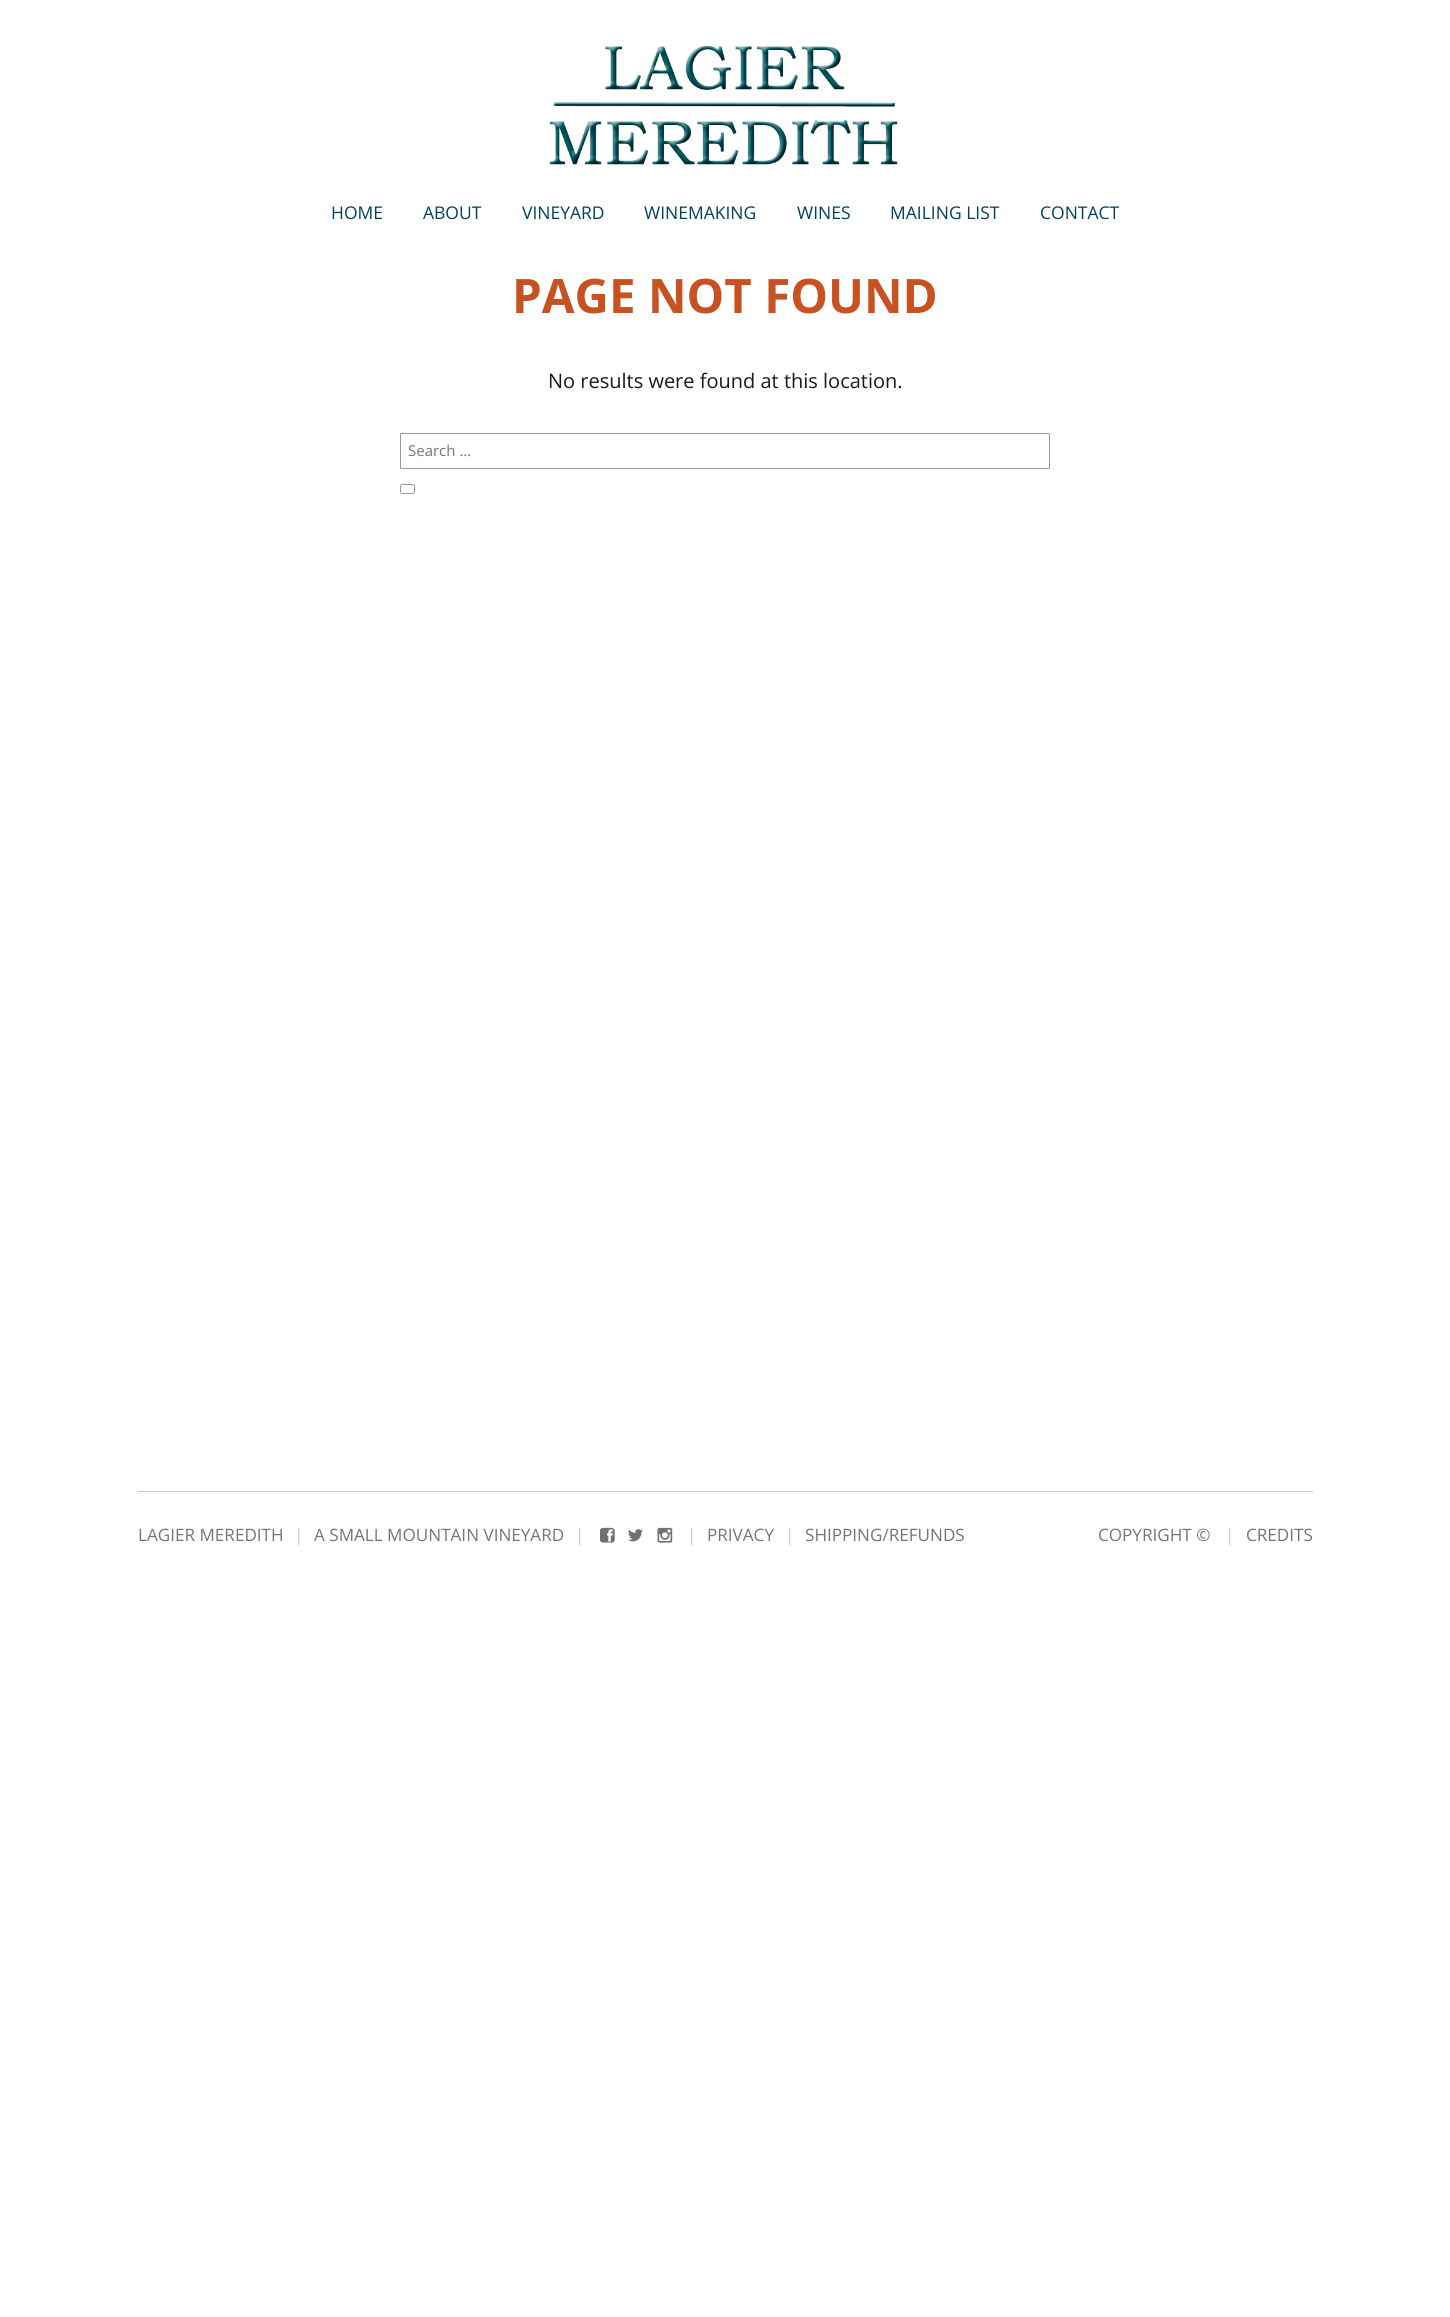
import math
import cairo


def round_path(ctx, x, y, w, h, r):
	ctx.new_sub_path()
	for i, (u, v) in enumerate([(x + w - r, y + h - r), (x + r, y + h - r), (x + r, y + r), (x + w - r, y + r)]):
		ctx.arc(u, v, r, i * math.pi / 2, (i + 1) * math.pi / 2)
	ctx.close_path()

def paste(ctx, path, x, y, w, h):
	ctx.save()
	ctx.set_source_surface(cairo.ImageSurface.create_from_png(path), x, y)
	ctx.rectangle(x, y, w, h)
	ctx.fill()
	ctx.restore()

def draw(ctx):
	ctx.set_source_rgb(1, 1, 1)
	ctx.paint()
	paste(ctx, 'media/1.png', 549, 45, 349, 120)
	ctx.select_font_face('Open Sans')
	ctx.set_font_size(17.5)
	ctx.set_source_rgb(0, 0.259, 0.353)
	for x, y, s in [
		(331, 219, 'HOME'),
		(423, 219, 'ABOUT'),
		(522, 219, 'VINEYARD'),
		(644, 219, 'WINEMAKING'),
		(797, 219, 'WINES'),
		(890, 219, 'MAILING LIST'),
		(1040, 219, 'CONTACT'),
	]:
		ctx.move_to(x, y)
		ctx.show_text(s)
	ctx.select_font_face('Open Sans', cairo.FONT_SLANT_NORMAL, cairo.FONT_WEIGHT_BOLD)
	ctx.set_font_size(47.5)
	ctx.set_source_rgb(0.776, 0.318, 0.129)
	ctx.move_to(512, 313)
	ctx.show_text('PAGE NOT FOUND')
	ctx.select_font_face('Open Sans')
	ctx.set_font_size(20)
	ctx.set_source_rgb(0.102, 0.102, 0.102)
	ctx.move_to(548, 388)
	ctx.show_text('No results were found at this location.')
	round_path(ctx, 400.5, 433.5, 649, 35, 0.5)
	ctx.set_source_rgb(0.6, 0.6, 0.6)
	ctx.set_line_width(1)
	ctx.stroke()
	ctx.set_font_size(15)
	ctx.set_source_rgb(0.459, 0.459, 0.459)
	ctx.move_to(408, 456)
	ctx.show_text('Search …')
	round_path(ctx, 400.5, 484.5, 14, 9, 2)
	ctx.set_source_rgb(0.6, 0.6, 0.6)
	ctx.stroke()
	ctx.set_source_rgb(0.8, 0.8, 0.8)
	ctx.rectangle(138, 1491, 1175, 1)
	ctx.fill()
	ctx.set_font_size(17.1)
	ctx.set_source_rgb(0.459, 0.459, 0.459)
	ctx.move_to(138, 1541)
	ctx.show_text('LAGIER MEREDITH')
	ctx.set_source_rgb(0.8, 0.8, 0.8)
	ctx.move_to(294, 1541)
	ctx.show_text('|')
	ctx.set_source_rgb(0.459, 0.459, 0.459)
	ctx.move_to(314, 1541)
	ctx.show_text('A SMALL MOUNTAIN VINEYARD')
	ctx.set_source_rgb(0.8, 0.8, 0.8)
	ctx.move_to(575, 1541)
	ctx.show_text('|')
	paste(ctx, 'media/2.png', 600, 1527, 15, 16)
	paste(ctx, 'media/3.png', 628, 1529, 15, 13)
	paste(ctx, 'media/4.png', 657, 1527, 16, 16)
	ctx.move_to(687, 1541)
	ctx.show_text('|')
	ctx.set_source_rgb(0.459, 0.459, 0.459)
	ctx.move_to(707, 1541)
	ctx.show_text('PRIVACY')
	ctx.set_source_rgb(0.8, 0.8, 0.8)
	ctx.move_to(785, 1541)
	ctx.show_text('|')
	ctx.set_source_rgb(0.459, 0.459, 0.459)
	ctx.move_to(805, 1541)
	ctx.show_text('SHIPPING/REFUNDS')
	ctx.move_to(1098, 1541)
	ctx.show_text('COPYRIGHT ©')
	ctx.set_source_rgb(0.8, 0.8, 0.8)
	ctx.move_to(1225, 1541)
	ctx.show_text('|')
	ctx.set_source_rgb(0.459, 0.459, 0.459)
	ctx.move_to(1246, 1541)
	ctx.show_text('CREDITS')


surface = cairo.ImageSurface(cairo.FORMAT_RGB24, 1450, 2317)
ctx = cairo.Context(surface)
options = cairo.FontOptions()
options.set_hint_metrics(cairo.HINT_METRICS_OFF)
options.set_hint_style(cairo.HINT_STYLE_NONE)
ctx.set_font_options(options)
ctx.set_miter_limit(4)
draw(ctx)
surface.write_to_png('image.png')
